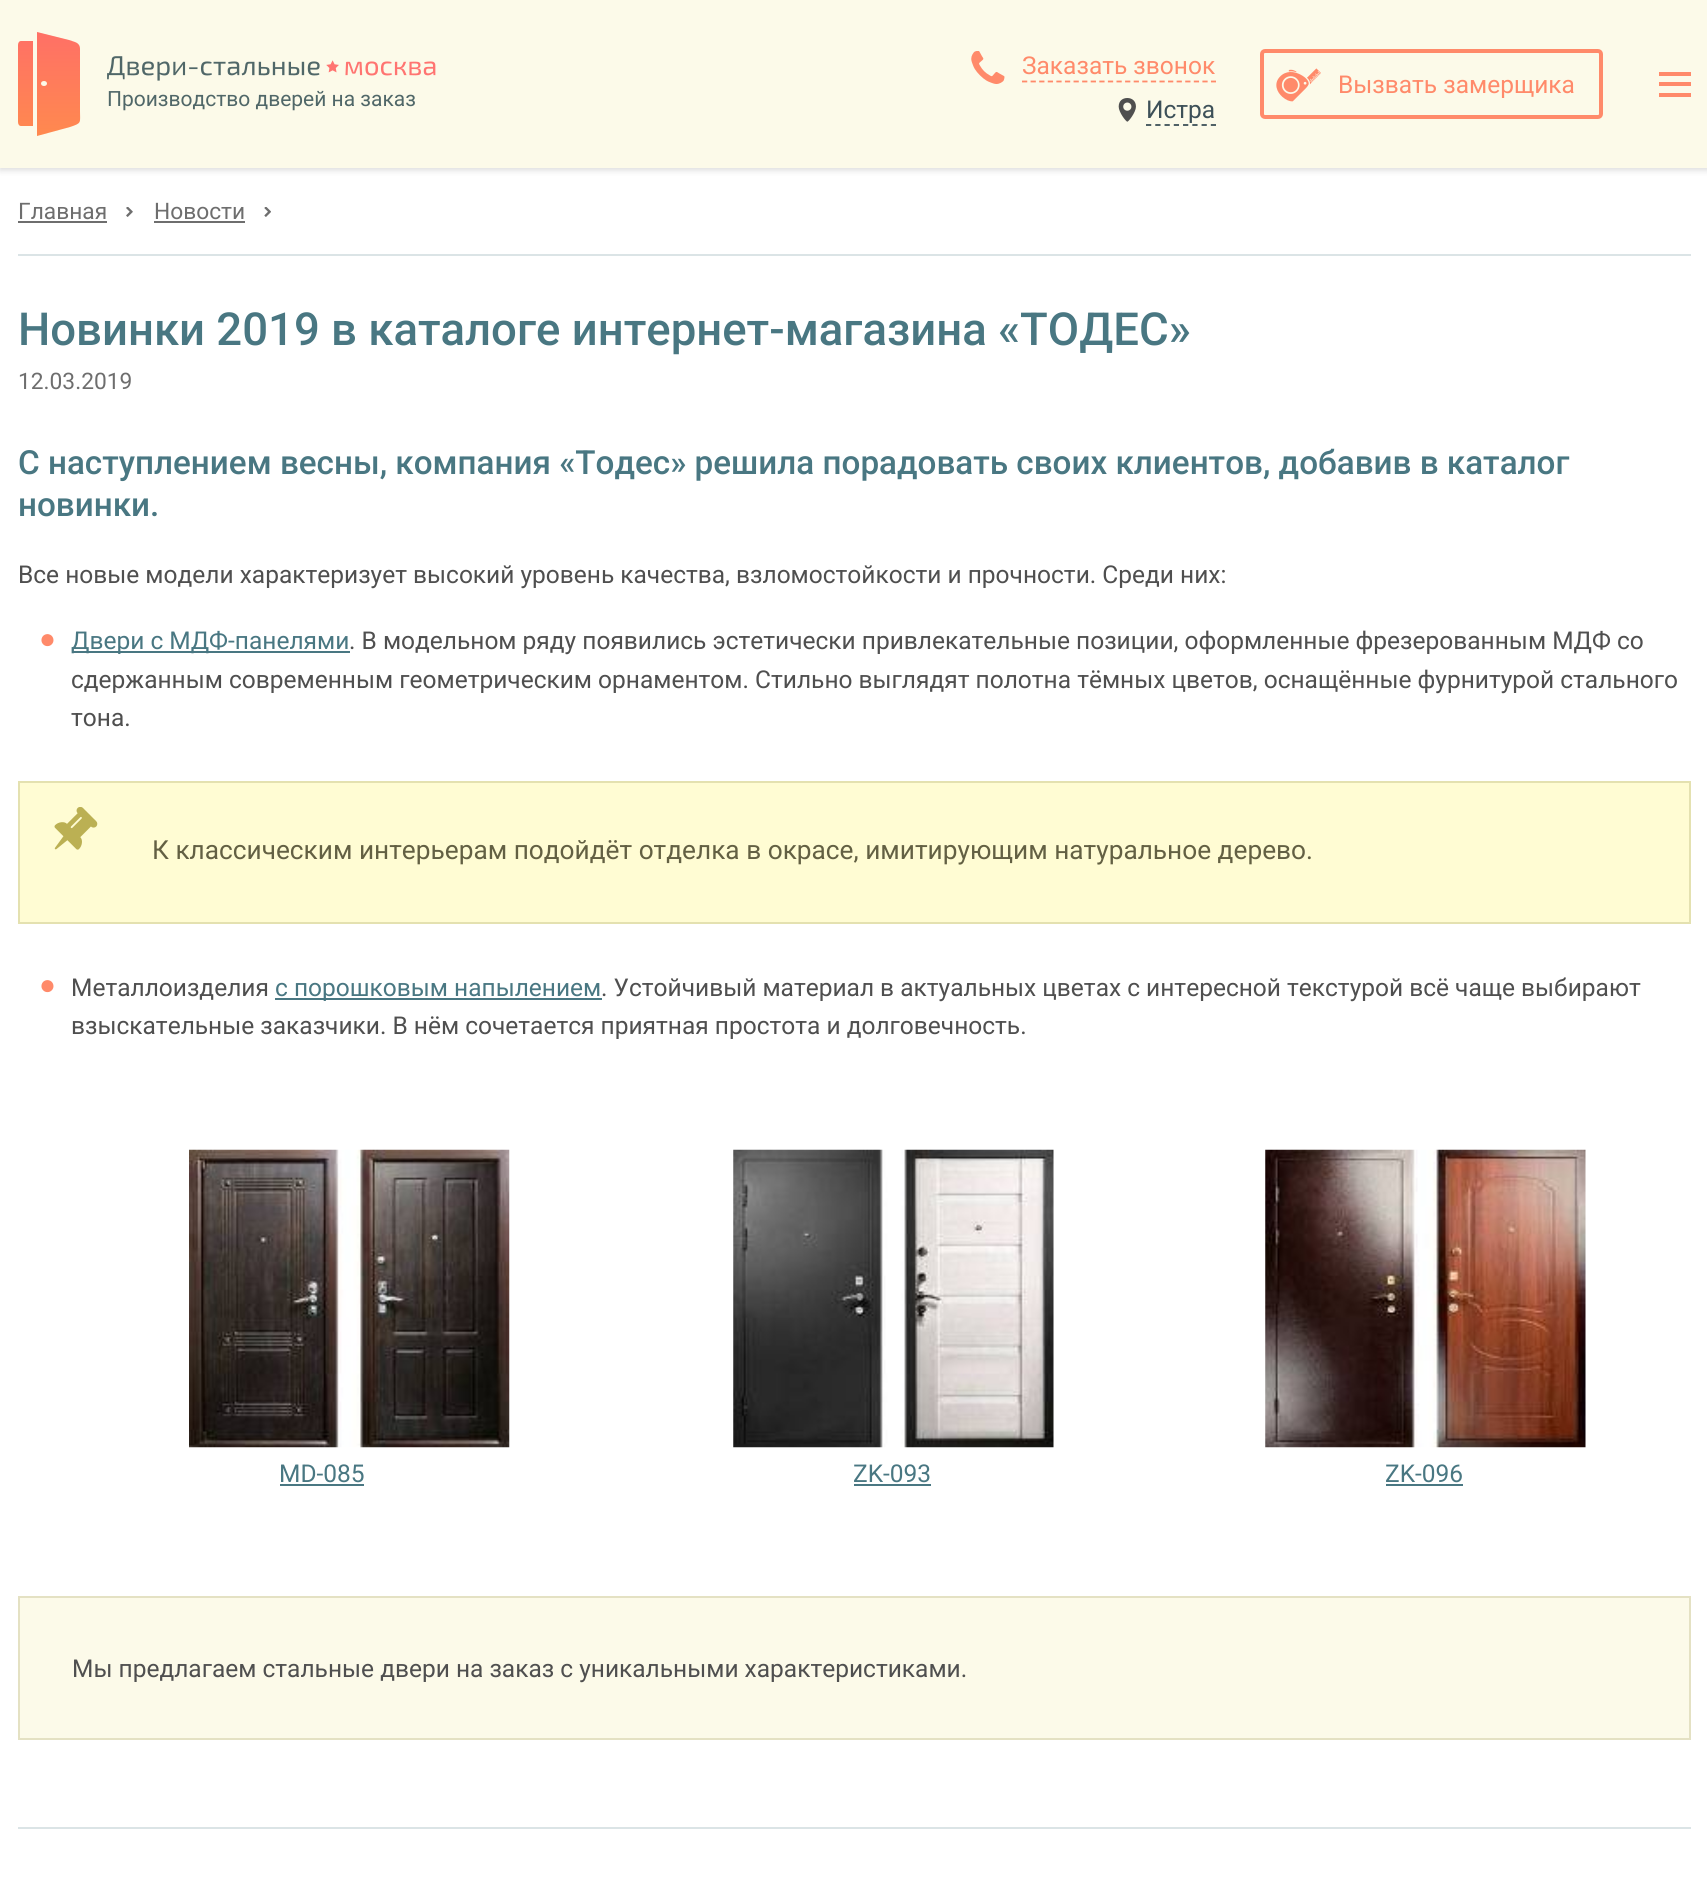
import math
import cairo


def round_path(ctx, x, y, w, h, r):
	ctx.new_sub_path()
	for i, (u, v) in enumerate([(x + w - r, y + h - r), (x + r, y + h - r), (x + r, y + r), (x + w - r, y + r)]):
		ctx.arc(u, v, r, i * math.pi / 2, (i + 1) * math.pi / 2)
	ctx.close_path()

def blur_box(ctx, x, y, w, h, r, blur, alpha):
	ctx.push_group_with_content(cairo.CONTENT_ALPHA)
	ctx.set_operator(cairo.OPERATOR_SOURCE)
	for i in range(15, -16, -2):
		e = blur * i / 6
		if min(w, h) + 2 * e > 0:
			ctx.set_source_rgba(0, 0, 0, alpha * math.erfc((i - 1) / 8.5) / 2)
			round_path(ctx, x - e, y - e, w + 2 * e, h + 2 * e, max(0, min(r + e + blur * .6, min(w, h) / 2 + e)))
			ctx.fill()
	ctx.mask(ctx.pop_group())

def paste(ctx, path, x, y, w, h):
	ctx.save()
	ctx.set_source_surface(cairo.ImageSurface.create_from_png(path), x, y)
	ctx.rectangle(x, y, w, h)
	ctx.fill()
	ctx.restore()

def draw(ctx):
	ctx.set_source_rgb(1, 1, 1)
	ctx.paint()
	ctx.set_source_rgb(0, 0, 0)
	blur_box(ctx, 0, 2, 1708, 168, 0, 3.5, 0.15)
	ctx.set_source_rgb(0.988, 0.98, 0.914)
	ctx.rectangle(0, 0, 1707, 168)
	ctx.fill()
	paste(ctx, 'media/1.png', 971, 51, 34, 33)
	ctx.new_path()
	ctx.move_to(1022, 81.5)
	ctx.line_to(1216, 81.5)
	ctx.set_source_rgb(1, 0.541, 0.416)
	ctx.set_line_width(1.8)
	ctx.set_dash([5.25, 3.34])
	ctx.stroke()
	ctx.select_font_face('Roboto')
	ctx.set_font_size(24.5)
	ctx.move_to(1022, 74)
	ctx.show_text('Заказать звонок')
	paste(ctx, 'media/2.png', 1118, 98, 18, 24)
	ctx.new_path()
	ctx.move_to(1146, 125)
	ctx.line_to(1216, 125)
	ctx.set_source_rgb(0.239, 0.314, 0.345)
	ctx.set_dash([5.25, 4.01])
	ctx.stroke()
	ctx.move_to(1146, 118)
	ctx.show_text('Истра')
	round_path(ctx, 1262, 51, 339, 66, 3)
	ctx.set_source_rgb(1, 0.541, 0.416)
	ctx.set_line_width(4)
	ctx.set_dash([])
	ctx.stroke()
	paste(ctx, 'media/3.png', 1276, 68, 45, 34)
	ctx.move_to(1338, 93)
	ctx.show_text('Вызвать замерщика')
	ctx.rectangle(1659, 72, 32, 4)
	ctx.rectangle(1659, 82, 32, 4)
	ctx.rectangle(1659, 93, 32, 4)
	ctx.fill()
	gradient = cairo.LinearGradient(49, 32, 49, 135)
	gradient.add_color_stop_rgba(0, 1, 0.439, 0.4, 1)
	gradient.add_color_stop_rgba(1, 1, 0.537, 0.31, 1)
	ctx.set_source(gradient)
	ctx.set_fill_rule(cairo.FILL_RULE_EVEN_ODD)
	ctx.new_path()
	ctx.move_to(37, 32)
	ctx.line_to(69, 40)
	ctx.curve_to(74, 42, 80, 42, 80, 49)
	ctx.line_to(80, 111)
	ctx.curve_to(80, 123, 82, 123, 70, 127)
	ctx.line_to(37, 136)
	ctx.close_path()
	ctx.move_to(44, 86)
	ctx.curve_to(48, 86, 48, 81, 44, 81)
	ctx.curve_to(40, 81, 40, 86, 44, 86)
	ctx.close_path()
	ctx.move_to(21, 41)
	ctx.line_to(33, 41)
	ctx.line_to(33, 126)
	ctx.line_to(21, 126)
	ctx.curve_to(19, 126, 18, 124, 18, 122)
	ctx.line_to(18, 45)
	ctx.curve_to(18, 43, 19, 41, 21, 41)
	ctx.close_path()
	ctx.fill()
	paste(ctx, 'media/4.png', 107, 56, 329, 25)
	ctx.set_font_size(21)
	ctx.set_source_rgb(0.314, 0.404, 0.408)
	ctx.move_to(107, 106)
	ctx.show_text('Производство дверей на заказ')
	ctx.set_source_rgb(0.859, 0.894, 0.902)
	ctx.rectangle(18, 254, 1673, 2)
	ctx.fill()
	ctx.set_font_size(22.75)
	ctx.set_source_rgb(0.431, 0.431, 0.431)
	ctx.move_to(18, 219)
	ctx.show_text('Главная')
	ctx.rectangle(18, 221, 89, 2)
	ctx.fill()
	paste(ctx, 'media/5.png', 126, 207, 7, 10)
	ctx.move_to(154, 219)
	ctx.show_text('Новости')
	ctx.rectangle(154, 221, 91, 2)
	ctx.fill()
	paste(ctx, 'media/6.png', 264, 207, 7, 10)
	ctx.select_font_face('Roboto Medium')
	ctx.set_font_size(45.5)
	ctx.set_source_rgb(0.286, 0.467, 0.51)
	ctx.move_to(18, 345)
	ctx.show_text('Новинки 2019 в каталоге интернет-магазина «ТОДЕС»')
	ctx.select_font_face('Roboto')
	ctx.set_font_size(22.75)
	ctx.set_source_rgb(0.431, 0.431, 0.431)
	ctx.move_to(18, 389)
	ctx.show_text('12.03.2019')
	ctx.select_font_face('Roboto Medium')
	ctx.set_font_size(33.25)
	ctx.set_source_rgb(0.286, 0.467, 0.51)
	ctx.move_to(18, 474)
	ctx.show_text('С наступлением весны, компания «Тодес» решила порадовать своих клиентов, добавив в каталог')
	ctx.move_to(18, 516)
	ctx.show_text('новинки.')
	ctx.select_font_face('Roboto')
	ctx.set_font_size(24.5)
	ctx.set_source_rgb(0.31, 0.31, 0.31)
	ctx.move_to(18, 583)
	ctx.show_text('Все новые модели характеризует высокий уровень качества, взломостойкости и прочности. Среди них:')
	ctx.select_font_face('Liberation Sans')
	ctx.set_font_size(28)
	ctx.set_source_rgb(1, 0.541, 0.416)
	ctx.move_to(39, 648)
	ctx.show_text('●')
	ctx.set_source_rgb(0.286, 0.467, 0.51)
	ctx.rectangle(72, 651, 278, 2)
	ctx.fill()
	ctx.select_font_face('Roboto')
	ctx.set_font_size(24.5)
	ctx.move_to(71, 649)
	ctx.show_text('Двери с МДФ-панелями')
	ctx.set_source_rgb(0.31, 0.31, 0.31)
	for x, y, s in [
		(349, 649, '. В модельном ряду появились эстетически привлекательные позиции, оформленные фрезерованным МДФ со'),
		(71, 688, 'сдержанным современным геометрическим орнаментом. Стильно выглядят полотна тёмных цветов, оснащённые фурнитурой стального'),
		(71, 726, 'тона.'),
	]:
		ctx.move_to(x, y)
		ctx.show_text(s)
	ctx.set_source_rgb(1, 0.988, 0.827)
	ctx.rectangle(20, 783, 1669, 139)
	ctx.fill()
	paste(ctx, 'media/7.png', 54, 807, 44, 43)
	ctx.rectangle(19, 782, 1671, 141)
	ctx.set_source_rgb(0.894, 0.882, 0.69)
	ctx.set_line_width(2)
	ctx.stroke()
	ctx.set_font_size(26.25)
	ctx.set_source_rgb(0.388, 0.376, 0.263)
	ctx.move_to(152, 859)
	ctx.show_text('К классическим интерьерам подойдёт отделка в окрасе, имитирующим натуральное дерево.')
	ctx.select_font_face('Liberation Sans')
	ctx.set_font_size(28)
	ctx.set_source_rgb(1, 0.541, 0.416)
	ctx.move_to(39, 994)
	ctx.show_text('●')
	ctx.select_font_face('Roboto')
	ctx.set_font_size(24.5)
	ctx.set_source_rgb(0.31, 0.31, 0.31)
	ctx.move_to(71, 996)
	ctx.show_text('Металлоизделия')
	ctx.set_source_rgb(0.286, 0.467, 0.51)
	ctx.rectangle(275, 998, 327, 2)
	ctx.fill()
	ctx.move_to(275, 996)
	ctx.show_text('с порошковым напылением')
	ctx.set_source_rgb(0.31, 0.31, 0.31)
	ctx.move_to(601, 996)
	ctx.show_text('. Устойчивый материал в актуальных цветах с интересной текстурой всё чаще выбирают')
	ctx.move_to(71, 1034)
	ctx.show_text('взыскательные заказчики. В нём сочетается приятная простота и долговечность.')
	paste(ctx, 'media/8.png', 189, 1149, 321, 299)
	ctx.set_source_rgb(0.286, 0.467, 0.51)
	ctx.move_to(279, 1482)
	ctx.show_text('MD-085')
	ctx.rectangle(280, 1484, 84, 2)
	ctx.fill()
	paste(ctx, 'media/9.png', 733, 1149, 321, 299)
	ctx.move_to(853, 1482)
	ctx.show_text('ZK-093')
	ctx.rectangle(854, 1484, 77, 2)
	ctx.fill()
	paste(ctx, 'media/10.png', 1265, 1149, 321, 299)
	ctx.move_to(1385, 1482)
	ctx.show_text('ZK-096')
	ctx.rectangle(1386, 1484, 77, 2)
	ctx.fill()
	ctx.set_source_rgb(0.988, 0.98, 0.914)
	ctx.rectangle(19, 1597, 1671, 142)
	ctx.fill_preserve()
	ctx.set_source_rgb(0.894, 0.882, 0.765)
	ctx.stroke()
	ctx.set_source_rgb(0.31, 0.31, 0.31)
	ctx.move_to(72, 1677)
	ctx.show_text('Мы предлагаем стальные двери на заказ с уникальными характеристиками.')
	ctx.set_source_rgb(0.859, 0.894, 0.902)
	ctx.rectangle(18, 1827, 1673, 2)
	ctx.fill()


surface = cairo.ImageSurface(cairo.FORMAT_RGB24, 1707, 1895)
ctx = cairo.Context(surface)
options = cairo.FontOptions()
options.set_hint_metrics(cairo.HINT_METRICS_OFF)
options.set_hint_style(cairo.HINT_STYLE_NONE)
ctx.set_font_options(options)
ctx.set_miter_limit(4)
draw(ctx)
surface.write_to_png('image.png')
